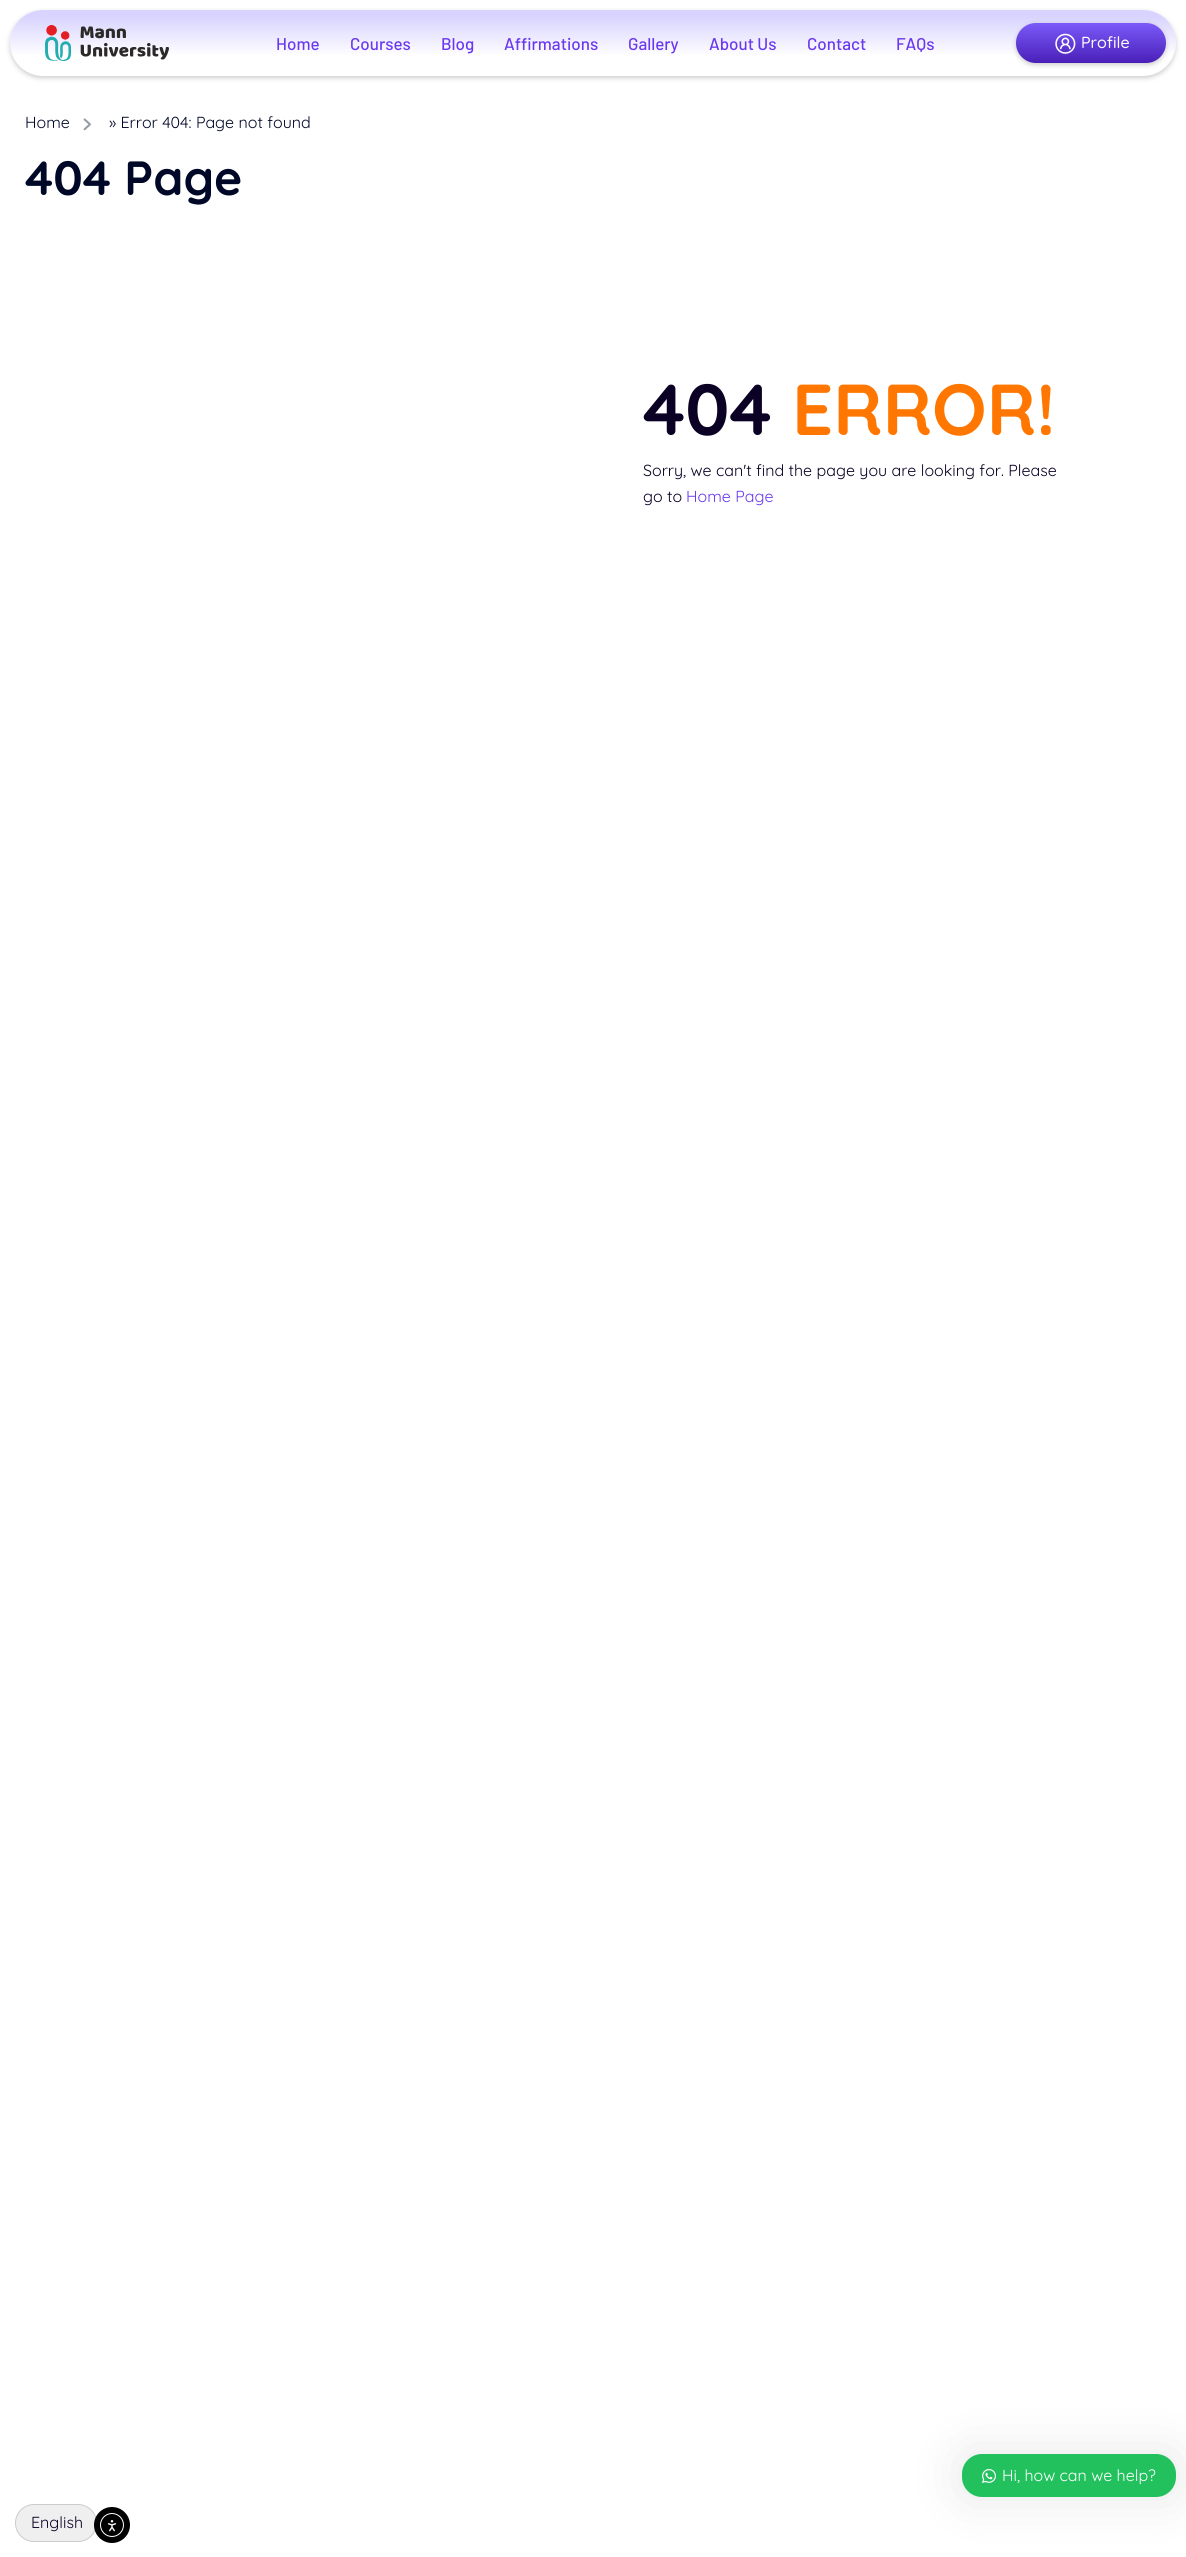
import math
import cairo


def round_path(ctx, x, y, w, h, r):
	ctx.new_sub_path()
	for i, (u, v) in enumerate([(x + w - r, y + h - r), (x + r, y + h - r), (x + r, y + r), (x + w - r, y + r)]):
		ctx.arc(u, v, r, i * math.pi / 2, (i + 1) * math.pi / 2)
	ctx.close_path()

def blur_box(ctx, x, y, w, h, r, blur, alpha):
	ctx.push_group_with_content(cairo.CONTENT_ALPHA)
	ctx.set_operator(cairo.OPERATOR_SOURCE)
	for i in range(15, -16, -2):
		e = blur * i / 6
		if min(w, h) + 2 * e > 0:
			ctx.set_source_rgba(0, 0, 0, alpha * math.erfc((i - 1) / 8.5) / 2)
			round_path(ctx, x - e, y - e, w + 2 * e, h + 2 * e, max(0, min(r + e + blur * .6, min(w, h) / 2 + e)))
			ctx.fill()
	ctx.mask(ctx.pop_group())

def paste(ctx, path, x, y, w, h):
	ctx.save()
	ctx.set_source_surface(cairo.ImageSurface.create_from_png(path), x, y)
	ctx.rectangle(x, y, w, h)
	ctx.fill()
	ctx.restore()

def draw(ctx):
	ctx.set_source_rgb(1, 1, 1)
	ctx.paint()
	ctx.set_source_rgb(0, 0, 0)
	blur_box(ctx, 10, 12, 1166, 66, 33, 2.5, 0.2)
	ctx.set_source_rgb(1, 1, 1)
	round_path(ctx, 10, 10, 1166, 66, 33)
	ctx.fill()
	gradient = cairo.LinearGradient(593, 10, 593, 76)
	gradient.add_color_stop_rgba(0.1, 0.776, 0.749, 0.996, 0.68)
	gradient.add_color_stop_rgba(0.7, 0.776, 0.749, 0.996, 0)
	ctx.set_source(gradient)
	round_path(ctx, 10, 10, 1166, 66, 33)
	ctx.fill()
	paste(ctx, 'media/1.png', 45, 25, 124, 36)
	ctx.select_font_face('Barlow Medium')
	ctx.set_font_size(17)
	ctx.set_source_rgb(0.412, 0.22, 0.937)
	for x, y, s in [
		(276, 50, 'Home'),
		(350, 50, 'Courses'),
		(441, 50, 'Blog'),
		(504, 50, 'Affirmations'),
		(628, 50, 'Gallery'),
		(709, 50, 'About Us'),
		(807, 50, 'Contact'),
		(896, 50, 'FAQs'),
	]:
		ctx.move_to(x, y)
		ctx.show_text(s)
	ctx.set_source_rgb(0, 0, 0)
	blur_box(ctx, 1016, 25, 150, 40, 20, 2.5, 0.2)
	gradient = cairo.LinearGradient(1091, 23, 1091, 63)
	gradient.add_color_stop_rgba(0, 0.478, 0.353, 0.973, 1)
	gradient.add_color_stop_rgba(1, 0.29, 0.122, 0.722, 1)
	ctx.set_source(gradient)
	round_path(ctx, 1016, 23, 150, 40, 20)
	ctx.fill()
	paste(ctx, 'media/2.png', 1055, 33, 21, 21)
	ctx.select_font_face('Quicksand Medium')
	ctx.set_font_size(16)
	ctx.set_source_rgb(1, 1, 1)
	ctx.move_to(1081, 48)
	ctx.show_text('Profile')
	ctx.select_font_face('Quicksand')
	ctx.set_source_rgb(0, 0.035, 0.153)
	ctx.move_to(25, 128)
	ctx.show_text('Home')
	paste(ctx, 'media/3.png', 83, 118, 8, 13)
	ctx.move_to(109, 128)
	ctx.show_text('» Error 404: Page not found')
	ctx.select_font_face('Quicksand', cairo.FONT_SLANT_NORMAL, cairo.FONT_WEIGHT_BOLD)
	ctx.set_font_size(48)
	ctx.move_to(25, 195)
	ctx.show_text('404 Page')
	ctx.set_font_size(72)
	ctx.set_source_rgb(0.043, 0.004, 0.141)
	ctx.move_to(643, 435)
	ctx.show_text('404')
	ctx.set_source_rgb(1, 0.467, 0)
	ctx.move_to(792, 435)
	ctx.show_text('ERROR!')
	ctx.select_font_face('Quicksand')
	ctx.set_font_size(16)
	ctx.set_source_rgb(0.043, 0.004, 0.141)
	ctx.move_to(643, 476)
	ctx.show_text('Sorry, we can\'t find the page you are looking for. Please')
	ctx.move_to(643, 502)
	ctx.show_text('go to')
	ctx.set_source_rgb(0.412, 0.22, 0.937)
	ctx.move_to(686, 502)
	ctx.show_text('Home Page')
	ctx.set_source_rgb(0, 0, 0)
	blur_box(ctx, 962, 2454, 214, 43, 20, 25, 0.1)
	ctx.set_source_rgb(0.133, 0.757, 0.369)
	round_path(ctx, 962, 2454, 214, 43, 20)
	ctx.fill()
	paste(ctx, 'media/4.png', 982, 2469, 14, 14)
	ctx.set_source_rgb(1, 1, 1)
	ctx.move_to(1002, 2481)
	ctx.show_text('Hi, how can we help?')
	ctx.set_source_rgb(0.937, 0.937, 0.937)
	round_path(ctx, 15.5, 2504.5, 81, 37, 18.5)
	ctx.fill_preserve()
	ctx.set_source_rgb(0.8, 0.8, 0.8)
	ctx.set_line_width(1)
	ctx.stroke()
	ctx.set_source_rgb(0.043, 0.004, 0.141)
	ctx.move_to(31, 2528)
	ctx.show_text('English')
	ctx.set_source_rgb(0, 0, 0)
	ctx.new_path()
	ctx.arc(112, 2525, 18, 0, 2 * math.pi)
	ctx.fill()
	ctx.arc(112, 2525, 11.5, 0, 2 * math.pi)
	ctx.set_source_rgb(1, 1, 1)
	ctx.stroke()
	paste(ctx, 'media/5.png', 107, 2520, 10, 12)


surface = cairo.ImageSurface(cairo.FORMAT_RGB24, 1186, 2557)
ctx = cairo.Context(surface)
options = cairo.FontOptions()
options.set_hint_metrics(cairo.HINT_METRICS_OFF)
options.set_hint_style(cairo.HINT_STYLE_NONE)
ctx.set_font_options(options)
ctx.set_miter_limit(4)
draw(ctx)
surface.write_to_png('image.png')
